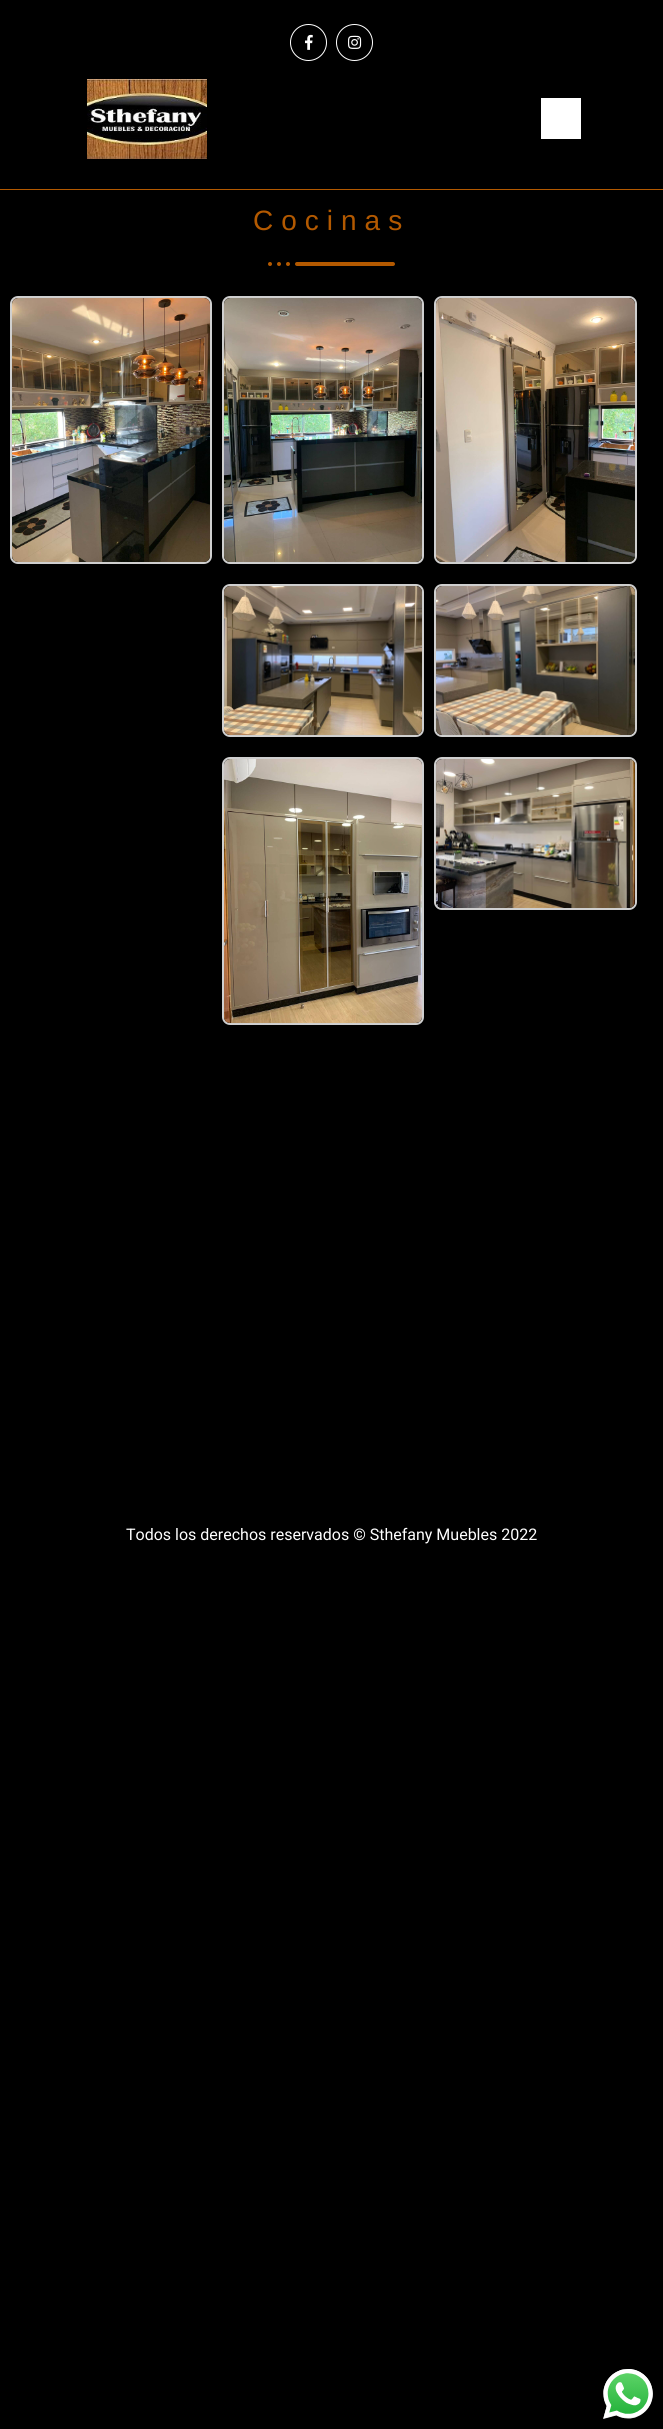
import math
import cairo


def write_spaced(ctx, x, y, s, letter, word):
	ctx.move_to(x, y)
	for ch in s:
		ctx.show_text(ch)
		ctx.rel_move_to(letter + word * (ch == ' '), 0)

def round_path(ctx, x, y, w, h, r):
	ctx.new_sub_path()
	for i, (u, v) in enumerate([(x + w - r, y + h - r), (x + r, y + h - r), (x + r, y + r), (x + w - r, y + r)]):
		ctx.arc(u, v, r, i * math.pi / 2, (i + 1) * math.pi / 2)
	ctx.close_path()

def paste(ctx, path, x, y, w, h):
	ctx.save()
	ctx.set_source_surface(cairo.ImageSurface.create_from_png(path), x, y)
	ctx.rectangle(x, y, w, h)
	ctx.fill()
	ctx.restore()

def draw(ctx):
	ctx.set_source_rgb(0, 0, 0)
	ctx.paint()
	ctx.arc(308.5, 42.5, 18, 0, 2 * math.pi)
	ctx.set_source_rgb(1, 1, 1)
	ctx.set_line_width(1)
	ctx.stroke()
	paste(ctx, 'media/1.png', 305, 34, 8, 16)
	ctx.arc(354.5, 42.5, 18, 0, 2 * math.pi)
	ctx.stroke()
	paste(ctx, 'media/2.png', 348, 35, 14, 14)
	ctx.set_source_rgb(0.702, 0.349, 0)
	ctx.rectangle(0, 189, 663, 1)
	ctx.fill()
	paste(ctx, 'media/3.png', 87, 79, 120, 80)
	ctx.set_source_rgb(1, 1, 1)
	ctx.rectangle(541, 98, 40, 41)
	ctx.fill()
	ctx.select_font_face('Liberation Sans')
	ctx.set_font_size(28)
	ctx.set_source_rgb(0.702, 0.349, 0)
	write_spaced(ctx, 253, 230, 'Cocinas', 8, 0)
	round_path(ctx, 295, 262, 100, 4, 2)
	ctx.fill()
	ctx.arc(288, 264, 2, 0, 2 * math.pi)
	ctx.fill()
	ctx.arc(279, 264, 2, 0, 2 * math.pi)
	ctx.fill()
	ctx.arc(270, 264, 2, 0, 2 * math.pi)
	ctx.fill()
	round_path(ctx, 11, 297, 200, 266, 7)
	ctx.set_source_rgb(0.812, 0.812, 0.812)
	ctx.set_line_width(2)
	ctx.stroke()
	paste(ctx, 'media/4.png', 12, 298, 198, 264)
	round_path(ctx, 223, 297, 200, 266, 7)
	ctx.stroke()
	paste(ctx, 'media/5.png', 224, 298, 198, 264)
	round_path(ctx, 435, 297, 201, 266, 7)
	ctx.stroke()
	paste(ctx, 'media/6.png', 436, 298, 199, 264)
	round_path(ctx, 223, 585, 200, 151, 7)
	ctx.stroke()
	paste(ctx, 'media/7.png', 224, 586, 198, 149)
	round_path(ctx, 435, 585, 201, 151, 7)
	ctx.stroke()
	paste(ctx, 'media/8.png', 436, 586, 199, 149)
	round_path(ctx, 223, 758, 200, 266, 7)
	ctx.stroke()
	paste(ctx, 'media/9.png', 224, 759, 198, 264)
	round_path(ctx, 435, 758, 201, 151, 7)
	ctx.stroke()
	paste(ctx, 'media/10.png', 436, 759, 199, 149)
	ctx.select_font_face('Roboto')
	ctx.set_font_size(16)
	ctx.set_source_rgb(1, 1, 1)
	ctx.move_to(126, 1540)
	ctx.show_text('Todos los derechos reservados © Sthefany Muebles 2022')
	paste(ctx, 'media/11.png', 603, 2369, 50, 50)


surface = cairo.ImageSurface(cairo.FORMAT_RGB24, 663, 2429)
ctx = cairo.Context(surface)
options = cairo.FontOptions()
options.set_hint_metrics(cairo.HINT_METRICS_OFF)
options.set_hint_style(cairo.HINT_STYLE_NONE)
ctx.set_font_options(options)
ctx.set_miter_limit(4)
draw(ctx)
surface.write_to_png('image.png')
